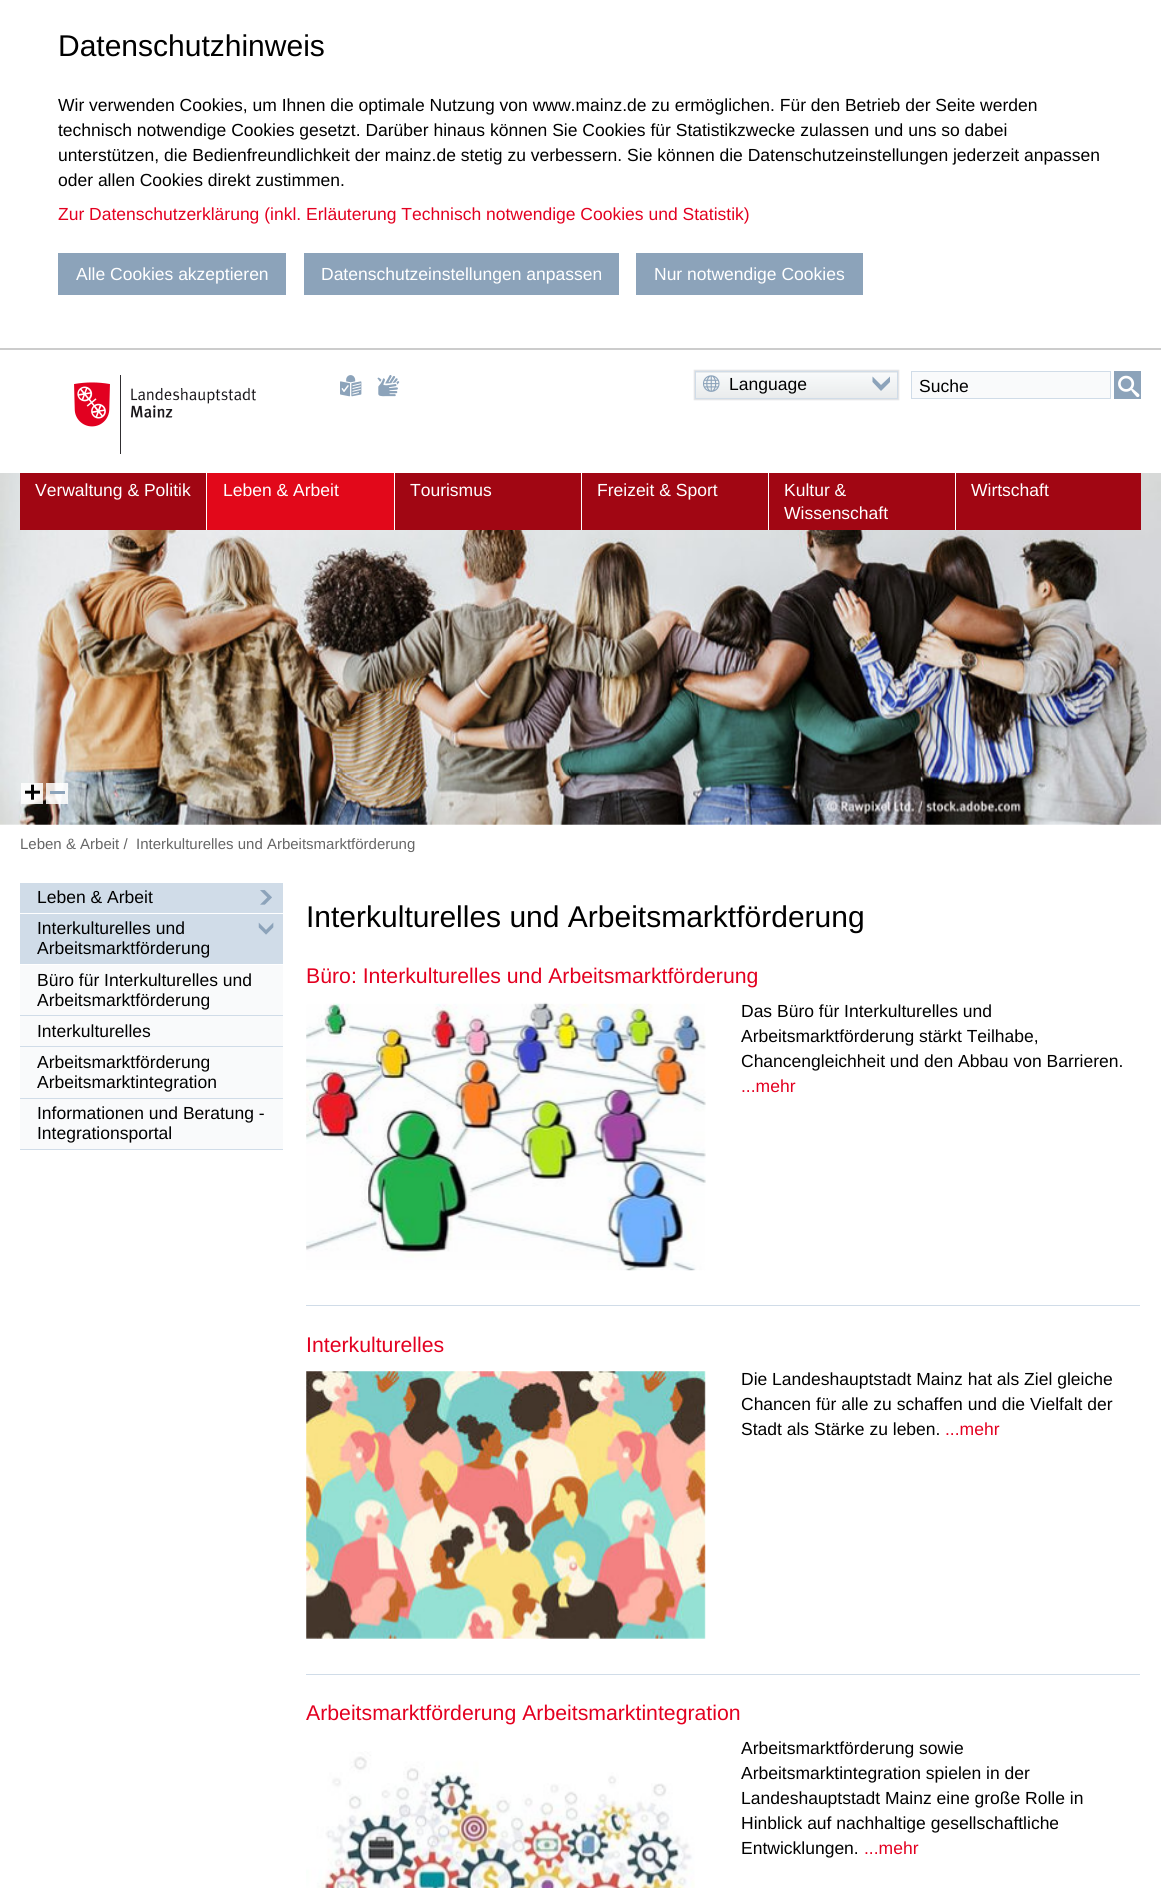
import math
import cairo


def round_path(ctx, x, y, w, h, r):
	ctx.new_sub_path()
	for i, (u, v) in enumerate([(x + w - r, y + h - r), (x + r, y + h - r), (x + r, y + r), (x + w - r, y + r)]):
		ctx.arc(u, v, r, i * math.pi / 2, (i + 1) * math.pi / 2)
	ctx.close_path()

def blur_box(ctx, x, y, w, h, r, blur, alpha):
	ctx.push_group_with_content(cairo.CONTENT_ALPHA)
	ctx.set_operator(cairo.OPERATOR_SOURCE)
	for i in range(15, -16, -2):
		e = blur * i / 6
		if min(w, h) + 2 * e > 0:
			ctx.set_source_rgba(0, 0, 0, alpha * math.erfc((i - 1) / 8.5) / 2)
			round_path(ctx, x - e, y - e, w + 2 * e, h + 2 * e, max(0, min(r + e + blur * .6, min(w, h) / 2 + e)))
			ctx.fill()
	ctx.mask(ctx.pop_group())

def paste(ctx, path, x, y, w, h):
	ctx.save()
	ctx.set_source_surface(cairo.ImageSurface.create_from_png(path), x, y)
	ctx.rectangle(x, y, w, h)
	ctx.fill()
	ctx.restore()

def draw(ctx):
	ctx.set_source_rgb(1, 1, 1)
	ctx.paint()
	ctx.set_source_rgb(0.8, 0.8, 0.8)
	ctx.rectangle(0, 348, 1161, 2)
	ctx.fill()
	ctx.select_font_face('Liberation Sans')
	ctx.set_font_size(30)
	ctx.set_source_rgb(0, 0, 0)
	ctx.move_to(58, 56)
	ctx.show_text('Datenschutzhinweis')
	ctx.set_font_size(17.5)
	for x, y, s in [
		(58, 111, 'Wir verwenden Cookies, um Ihnen die optimale Nutzung von www.mainz.de zu ermöglichen. Für den Betrieb der Seite werden'),
		(58, 136, 'technisch notwendige Cookies gesetzt. Darüber hinaus können Sie Cookies für Statistikzwecke zulassen und uns so dabei'),
		(58, 161, 'unterstützen, die Bedienfreundlichkeit der mainz.de stetig zu verbessern. Sie können die Datenschutzeinstellungen jederzeit anpassen'),
		(58, 186, 'oder allen Cookies direkt zustimmen.'),
	]:
		ctx.move_to(x, y)
		ctx.show_text(s)
	ctx.set_source_rgb(0.89, 0, 0.125)
	ctx.move_to(58, 220)
	ctx.show_text('Zur Datenschutzerklärung (inkl. Erläuterung Technisch notwendige Cookies und Statistik)')
	ctx.set_source_rgb(0.549, 0.639, 0.729)
	ctx.rectangle(58, 253, 228, 42)
	ctx.fill()
	ctx.set_source_rgb(1, 1, 1)
	ctx.move_to(76, 280)
	ctx.show_text('Alle Cookies akzeptieren')
	ctx.set_source_rgb(0.549, 0.639, 0.729)
	ctx.rectangle(304, 253, 315, 42)
	ctx.fill()
	ctx.set_source_rgb(1, 1, 1)
	ctx.move_to(321, 280)
	ctx.show_text('Datenschutzeinstellungen anpassen')
	ctx.set_source_rgb(0.549, 0.639, 0.729)
	ctx.rectangle(636, 253, 227, 42)
	ctx.fill()
	ctx.set_source_rgb(1, 1, 1)
	ctx.move_to(654, 280)
	ctx.show_text('Nur notwendige Cookies')
	paste(ctx, 'media/1.png', 74, 375, 182, 79)
	paste(ctx, 'media/2.png', 340, 375, 22, 22)
	paste(ctx, 'media/3.png', 377, 375, 23, 22)
	ctx.set_source_rgb(0.875, 0.878, 0.886)
	blur_box(ctx, 694, 370, 205, 30, 0, 0.5, 1)
	gradient = cairo.LinearGradient(796, 348, 796, 373)
	gradient.add_color_stop_rgba(0, 0.973, 0.98, 0.984, 1)
	gradient.add_color_stop_rgba(1, 0.914, 0.922, 0.925, 1)
	ctx.set_source(gradient)
	ctx.rectangle(695, 372, 203, 1)
	ctx.fill()
	gradient = cairo.LinearGradient(796, 373, 796, 398)
	gradient.add_color_stop_rgba(0, 0.973, 0.98, 0.984, 1)
	gradient.add_color_stop_rgba(1, 0.914, 0.922, 0.925, 1)
	ctx.set_source(gradient)
	ctx.rectangle(696, 373, 201, 25)
	ctx.fill()
	ctx.rectangle(695.5, 371.5, 202, 27)
	ctx.set_source_rgb(0.816, 0.863, 0.91)
	ctx.set_line_width(1)
	ctx.stroke()
	paste(ctx, 'media/4.png', 703, 375, 17, 17)
	ctx.set_source_rgb(0, 0, 0)
	ctx.move_to(729, 390)
	ctx.show_text('Language')
	ctx.set_source_rgb(0.549, 0.639, 0.729)
	ctx.new_path()
	ctx.move_to(890, 382)
	ctx.line_to(890, 376.5)
	ctx.line_to(881, 385)
	ctx.line_to(872.5, 376.5)
	ctx.line_to(872.5, 382)
	ctx.line_to(881, 391)
	ctx.close_path()
	ctx.fill()
	ctx.set_source_rgb(0.973, 0.98, 0.984)
	ctx.rectangle(911.5, 371.5, 199, 27)
	ctx.fill_preserve()
	ctx.set_source_rgb(0.816, 0.863, 0.91)
	ctx.stroke()
	ctx.set_source_rgb(0, 0, 0)
	ctx.move_to(919, 392)
	ctx.show_text('Suche')
	ctx.set_source_rgb(0.549, 0.639, 0.729)
	ctx.rectangle(1114, 371, 27, 28)
	ctx.fill()
	paste(ctx, 'media/5.png', 1118, 375, 22, 23)
	paste(ctx, 'media/6.png', 0, 473, 1161, 352)
	ctx.set_source_rgb(0.631, 0.024, 0.075)
	ctx.rectangle(20, 473, 186, 57)
	ctx.fill()
	ctx.set_source_rgb(1, 1, 1)
	ctx.move_to(35, 496)
	ctx.show_text('Verwaltung & Politik')
	ctx.set_source_rgb(0.886, 0.035, 0.102)
	ctx.rectangle(207, 473, 187, 57)
	ctx.fill()
	ctx.set_source_rgb(1, 1, 1)
	ctx.rectangle(206, 473, 1, 57)
	ctx.fill()
	ctx.move_to(223, 496)
	ctx.show_text('Leben & Arbeit')
	ctx.set_source_rgb(0.631, 0.024, 0.075)
	ctx.rectangle(395, 473, 186, 57)
	ctx.fill()
	ctx.set_source_rgb(1, 1, 1)
	ctx.rectangle(394, 473, 1, 57)
	ctx.fill()
	ctx.move_to(410, 496)
	ctx.show_text('Tourismus')
	ctx.set_source_rgb(0.631, 0.024, 0.075)
	ctx.rectangle(582, 473, 186, 57)
	ctx.fill()
	ctx.set_source_rgb(1, 1, 1)
	ctx.rectangle(581, 473, 1, 57)
	ctx.fill()
	ctx.move_to(597, 496)
	ctx.show_text('Freizeit & Sport')
	ctx.set_source_rgb(0.631, 0.024, 0.075)
	ctx.rectangle(769, 473, 186, 57)
	ctx.fill()
	ctx.set_source_rgb(1, 1, 1)
	ctx.rectangle(768, 473, 1, 57)
	ctx.fill()
	ctx.move_to(784, 496)
	ctx.show_text('Kultur &')
	ctx.move_to(784, 519)
	ctx.show_text('Wissenschaft')
	ctx.set_source_rgb(0.631, 0.024, 0.075)
	ctx.rectangle(956, 473, 185, 57)
	ctx.fill()
	ctx.set_source_rgb(1, 1, 1)
	ctx.rectangle(955, 473, 1, 57)
	ctx.fill()
	ctx.move_to(971, 496)
	ctx.show_text('Wirtschaft')
	ctx.set_source_rgba(1, 1, 1, 0.85)
	ctx.rectangle(21, 783, 22, 21)
	ctx.fill()
	paste(ctx, 'media/7.png', 25, 784, 15, 16)
	ctx.rectangle(46, 783, 22, 21)
	ctx.fill()
	ctx.set_source_rgb(0.549, 0.639, 0.729)
	ctx.rectangle(50, 791, 15, 3)
	ctx.fill()
	ctx.set_font_size(15)
	ctx.set_source_rgb(0.4, 0.4, 0.4)
	ctx.move_to(20, 849)
	ctx.show_text('Leben & Arbeit /')
	ctx.move_to(136, 849)
	ctx.show_text('Interkulturelles und Arbeitsmarktförderung')
	ctx.set_source_rgb(0.816, 0.863, 0.91)
	ctx.rectangle(20, 883, 263, 30)
	ctx.fill()
	ctx.set_font_size(17.5)
	ctx.set_source_rgb(0, 0, 0)
	ctx.move_to(37, 903)
	ctx.show_text('Leben & Arbeit')
	paste(ctx, 'media/8.png', 260, 890, 12, 15)
	ctx.set_source_rgb(0.816, 0.863, 0.91)
	ctx.rectangle(20, 914, 263, 50)
	ctx.fill()
	ctx.set_source_rgb(0, 0, 0)
	ctx.move_to(37, 934)
	ctx.show_text('Interkulturelles und')
	paste(ctx, 'media/9.png', 258, 922, 16, 13)
	ctx.move_to(37, 954)
	ctx.show_text('Arbeitsmarktförderung')
	ctx.set_source_rgb(0.973, 0.98, 0.984)
	ctx.rectangle(20, 965, 263, 50)
	ctx.fill()
	ctx.set_source_rgb(0.816, 0.863, 0.91)
	ctx.rectangle(20, 1015, 263, 1)
	ctx.fill()
	ctx.set_source_rgb(0, 0, 0)
	ctx.move_to(37, 986)
	ctx.show_text('Büro für Interkulturelles und')
	ctx.move_to(37, 1006)
	ctx.show_text('Arbeitsmarktförderung')
	ctx.set_source_rgb(0.973, 0.98, 0.984)
	ctx.rectangle(20, 1016, 263, 82)
	ctx.fill()
	ctx.set_source_rgb(0.816, 0.863, 0.91)
	ctx.rectangle(20, 1046, 263, 1)
	ctx.fill()
	ctx.set_source_rgb(0, 0, 0)
	ctx.move_to(37, 1037)
	ctx.show_text('Interkulturelles')
	ctx.set_source_rgb(0.816, 0.863, 0.91)
	ctx.rectangle(20, 1098, 263, 1)
	ctx.fill()
	ctx.set_source_rgb(0, 0, 0)
	ctx.move_to(37, 1068)
	ctx.show_text('Arbeitsmarktförderung')
	ctx.move_to(37, 1088)
	ctx.show_text('Arbeitsmarktintegration')
	ctx.set_source_rgb(0.973, 0.98, 0.984)
	ctx.rectangle(20, 1099, 263, 50)
	ctx.fill()
	ctx.set_source_rgb(0.816, 0.863, 0.91)
	ctx.rectangle(20, 1149, 263, 1)
	ctx.fill()
	ctx.set_source_rgb(0, 0, 0)
	ctx.move_to(37, 1119)
	ctx.show_text('Informationen und Beratung -')
	ctx.move_to(37, 1139)
	ctx.show_text('Integrationsportal')
	ctx.set_font_size(30)
	ctx.move_to(306, 927)
	ctx.show_text('Interkulturelles und Arbeitsmarktförderung')
	ctx.set_source_rgb(0.816, 0.863, 0.91)
	ctx.rectangle(306, 1305, 834, 1)
	ctx.fill()
	ctx.set_font_size(21.25)
	ctx.set_source_rgb(0.89, 0, 0.125)
	ctx.move_to(306, 983)
	ctx.show_text('Büro: Interkulturelles und Arbeitsmarktförderung')
	paste(ctx, 'media/10.png', 306, 1002, 400, 269)
	ctx.set_font_size(17.5)
	ctx.set_source_rgb(0, 0, 0)
	for x, y, s in [
		(741, 1017, 'Das Büro für Interkulturelles und'),
		(741, 1042, 'Arbeitsmarktförderung stärkt Teilhabe,'),
		(741, 1067, 'Chancengleichheit und den Abbau von Barrieren.'),
	]:
		ctx.move_to(x, y)
		ctx.show_text(s)
	ctx.set_source_rgb(0.89, 0, 0.125)
	ctx.move_to(741, 1092)
	ctx.show_text('...mehr')
	ctx.set_source_rgb(0.816, 0.863, 0.91)
	ctx.rectangle(306, 1674, 834, 1)
	ctx.fill()
	ctx.set_font_size(21.25)
	ctx.set_source_rgb(0.89, 0, 0.125)
	ctx.move_to(306, 1352)
	ctx.show_text('Interkulturelles')
	paste(ctx, 'media/11.png', 306, 1371, 400, 268)
	ctx.set_font_size(17.5)
	ctx.set_source_rgb(0, 0, 0)
	for x, y, s in [
		(741, 1385, 'Die Landeshauptstadt Mainz hat als Ziel gleiche'),
		(741, 1410, 'Chancen für alle zu schaffen und die Vielfalt der'),
		(741, 1435, 'Stadt als Stärke zu leben.'),
	]:
		ctx.move_to(x, y)
		ctx.show_text(s)
	ctx.set_source_rgb(0.89, 0, 0.125)
	ctx.move_to(945, 1435)
	ctx.show_text('...mehr')
	ctx.set_font_size(21.25)
	ctx.move_to(306, 1720)
	ctx.show_text('Arbeitsmarktförderung Arbeitsmarktintegration')
	paste(ctx, 'media/12.png', 306, 1751, 389, 137)
	ctx.set_font_size(17.5)
	ctx.set_source_rgb(0, 0, 0)
	for x, y, s in [
		(741, 1754, 'Arbeitsmarktförderung sowie'),
		(741, 1779, 'Arbeitsmarktintegration spielen in der'),
		(741, 1804, 'Landeshauptstadt Mainz eine große Rolle in'),
		(741, 1829, 'Hinblick auf nachhaltige gesellschaftliche'),
		(741, 1854, 'Entwicklungen.'),
	]:
		ctx.move_to(x, y)
		ctx.show_text(s)
	ctx.set_source_rgb(0.89, 0, 0.125)
	ctx.move_to(864, 1854)
	ctx.show_text('...mehr')


surface = cairo.ImageSurface(cairo.FORMAT_RGB24, 1161, 1888)
ctx = cairo.Context(surface)
options = cairo.FontOptions()
options.set_hint_metrics(cairo.HINT_METRICS_OFF)
options.set_hint_style(cairo.HINT_STYLE_NONE)
ctx.set_font_options(options)
ctx.set_miter_limit(4)
draw(ctx)
surface.write_to_png('image.png')
